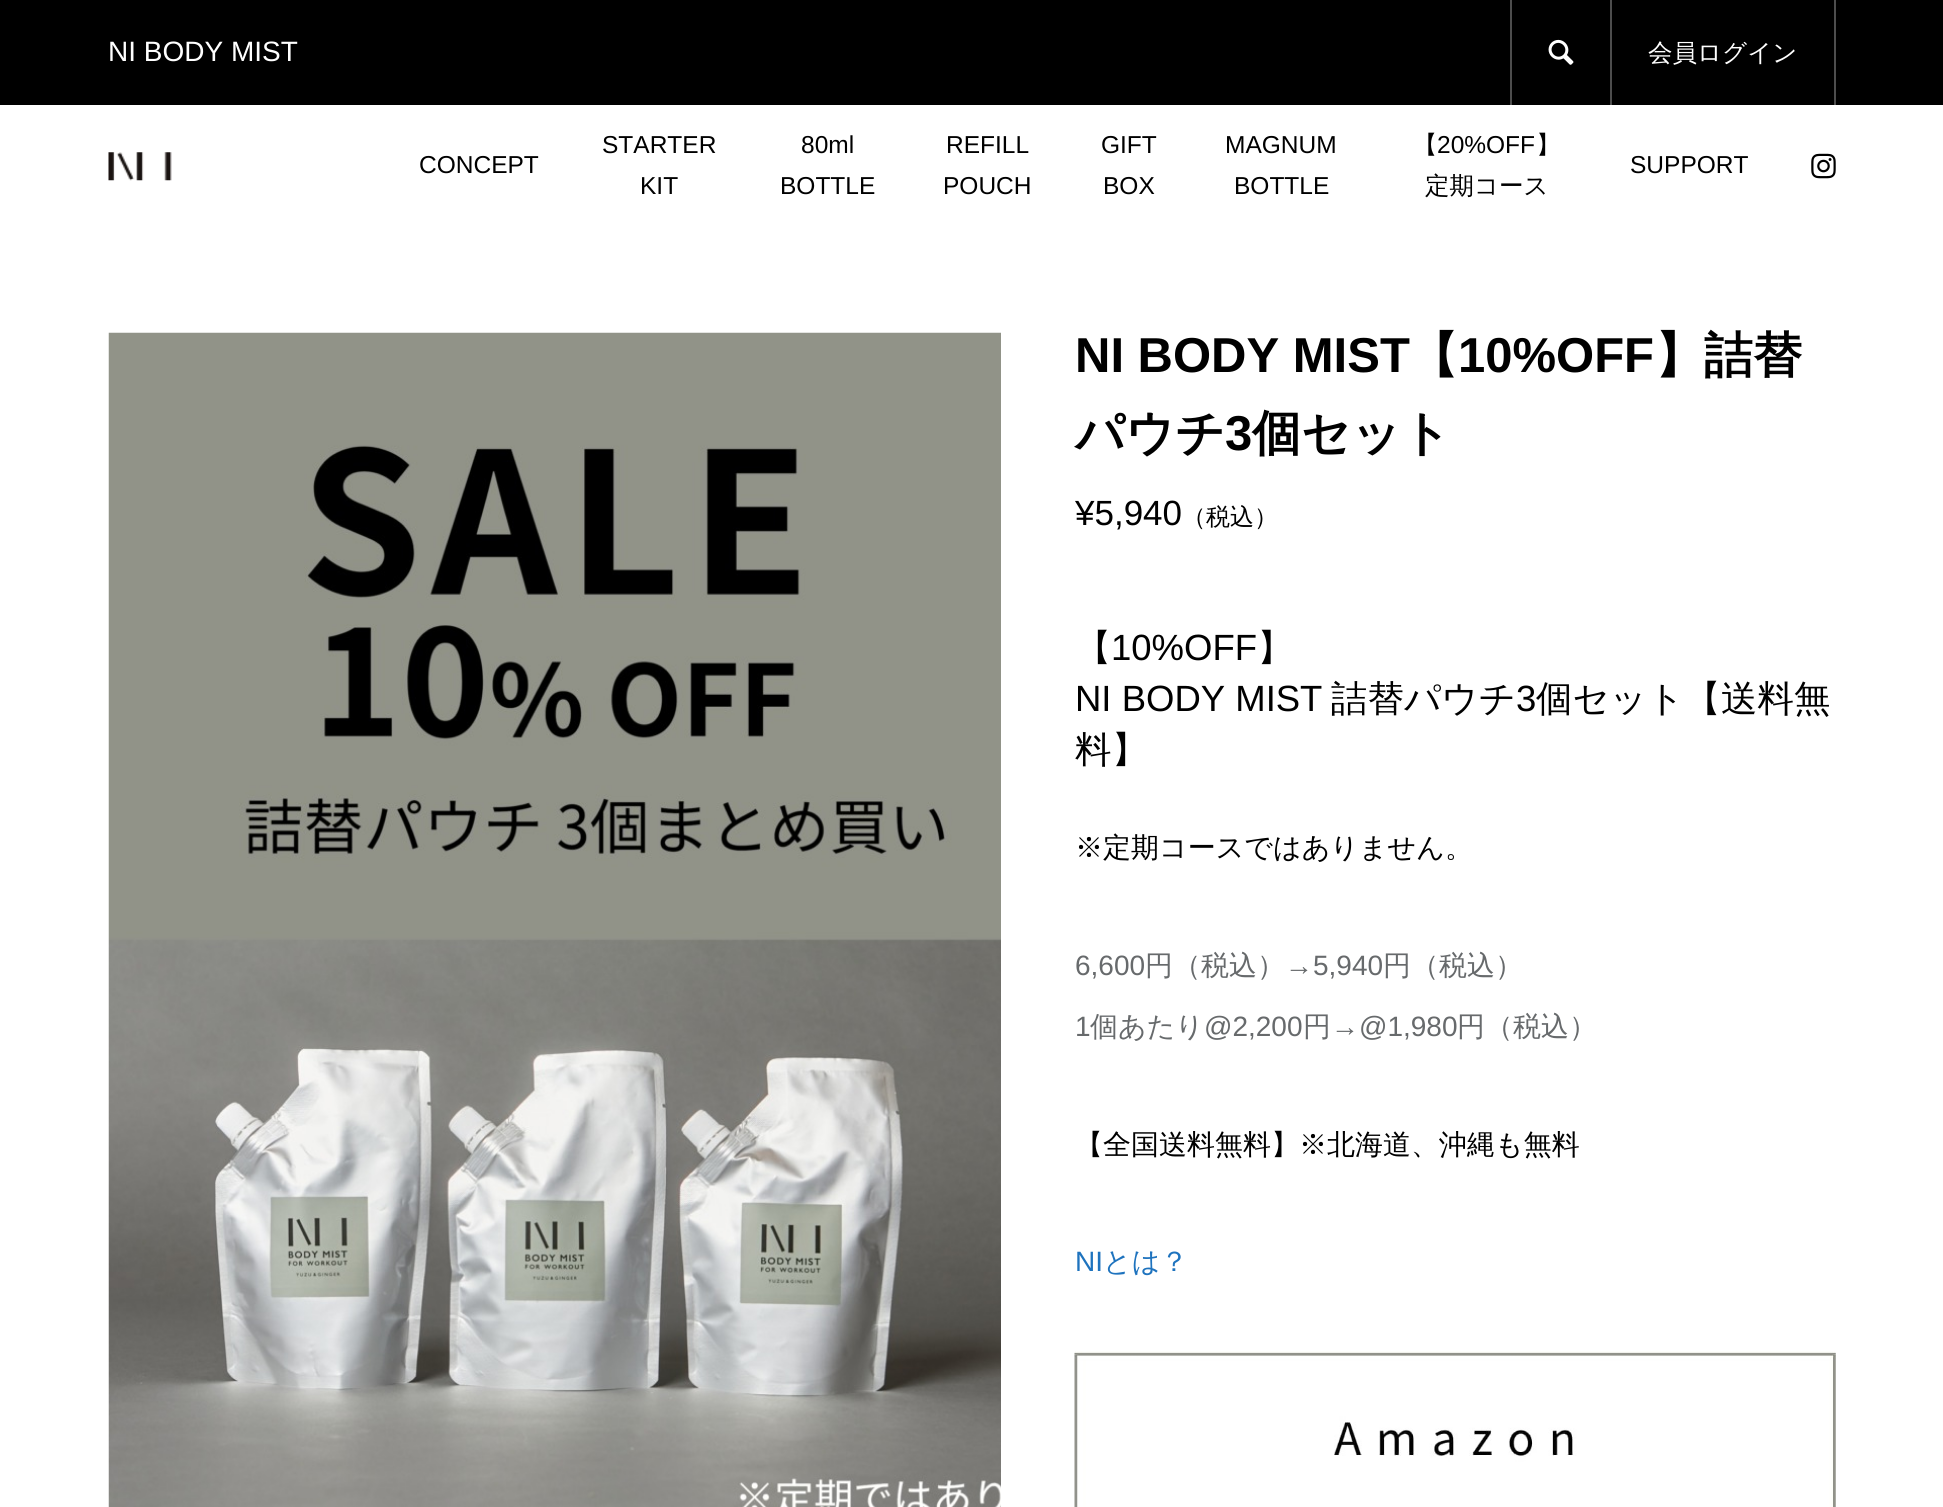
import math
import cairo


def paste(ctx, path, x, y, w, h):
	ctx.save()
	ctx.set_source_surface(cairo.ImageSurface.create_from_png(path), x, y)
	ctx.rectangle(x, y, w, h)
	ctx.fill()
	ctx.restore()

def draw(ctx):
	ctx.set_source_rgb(1, 1, 1)
	ctx.paint()
	ctx.set_source_rgb(0, 0, 0)
	ctx.rectangle(0, 0, 1943, 105)
	ctx.fill()
	ctx.select_font_face('Liberation Sans')
	ctx.set_font_size(28)
	ctx.set_source_rgb(1, 1, 1)
	ctx.move_to(108, 61)
	ctx.show_text('NI BODY MIST')
	ctx.set_source_rgb(0.302, 0.302, 0.302)
	ctx.rectangle(1834, 0, 2, 105)
	ctx.fill()
	ctx.rectangle(1510, 0, 2, 105)
	ctx.fill()
	paste(ctx, 'media/1.png', 1548, 39, 26, 26)
	ctx.rectangle(1610, 0, 2, 105)
	ctx.fill()
	ctx.select_font_face('WenQuanYi Zen Hei Medium')
	ctx.set_font_size(24.5)
	ctx.set_source_rgb(1, 1, 1)
	ctx.move_to(1648, 61)
	ctx.show_text('会員ログイン')
	paste(ctx, 'media/2.png', 108, 152, 64, 29)
	ctx.select_font_face('Liberation Sans')
	ctx.set_source_rgb(0, 0, 0)
	for x, y, s in [
		(419, 173, 'CONCEPT'),
		(602, 153, 'STARTER'),
		(640, 194, 'KIT'),
		(801, 153, '80ml'),
		(780, 194, 'BOTTLE'),
		(946, 153, 'REFILL'),
		(943, 194, 'POUCH'),
		(1101, 153, 'GIFT'),
		(1103, 194, 'BOX'),
		(1225, 153, 'MAGNUM'),
		(1234, 194, 'BOTTLE'),
	]:
		ctx.move_to(x, y)
		ctx.show_text(s)
	ctx.select_font_face('WenQuanYi Zen Hei Medium')
	ctx.move_to(1413, 153)
	ctx.show_text('【')
	ctx.select_font_face('Liberation Sans')
	ctx.move_to(1437, 153)
	ctx.show_text('20%OFF')
	ctx.select_font_face('WenQuanYi Zen Hei Medium')
	ctx.move_to(1536, 153)
	ctx.show_text('】')
	ctx.move_to(1425, 194)
	ctx.show_text('定期コース')
	ctx.select_font_face('Liberation Sans')
	ctx.move_to(1630, 173)
	ctx.show_text('SUPPORT')
	paste(ctx, 'media/3.png', 1811, 153, 25, 26)
	paste(ctx, 'media/4.png', 108, 332, 893, 1175)
	ctx.select_font_face('Liberation Sans', cairo.FONT_SLANT_NORMAL, cairo.FONT_WEIGHT_BOLD)
	ctx.set_font_size(49)
	ctx.move_to(1075, 372)
	ctx.show_text('NI BODY MIST')
	ctx.select_font_face('WenQuanYi Zen Hei', cairo.FONT_SLANT_NORMAL, cairo.FONT_WEIGHT_BOLD)
	ctx.move_to(1409, 372)
	ctx.show_text('【')
	ctx.select_font_face('Liberation Sans', cairo.FONT_SLANT_NORMAL, cairo.FONT_WEIGHT_BOLD)
	ctx.move_to(1458, 372)
	ctx.show_text('10%OFF')
	ctx.select_font_face('WenQuanYi Zen Hei', cairo.FONT_SLANT_NORMAL, cairo.FONT_WEIGHT_BOLD)
	ctx.move_to(1655, 372)
	ctx.show_text('】詰替')
	ctx.move_to(1075, 450)
	ctx.show_text('パウチ')
	ctx.select_font_face('Liberation Sans', cairo.FONT_SLANT_NORMAL, cairo.FONT_WEIGHT_BOLD)
	ctx.move_to(1225, 450)
	ctx.show_text('3')
	ctx.select_font_face('WenQuanYi Zen Hei', cairo.FONT_SLANT_NORMAL, cairo.FONT_WEIGHT_BOLD)
	ctx.move_to(1252, 450)
	ctx.show_text('個セット')
	ctx.select_font_face('Liberation Sans')
	ctx.set_font_size(35)
	ctx.move_to(1075, 525)
	ctx.show_text('¥5,940')
	ctx.select_font_face('WenQuanYi Zen Hei Medium')
	ctx.set_font_size(24)
	ctx.move_to(1182, 525)
	ctx.show_text('（税込）')
	ctx.set_font_size(36.5)
	ctx.move_to(1075, 660)
	ctx.show_text('【')
	ctx.select_font_face('Liberation Sans')
	ctx.move_to(1111, 660)
	ctx.show_text('10%OFF')
	ctx.select_font_face('WenQuanYi Zen Hei Medium')
	ctx.move_to(1257, 660)
	ctx.show_text('】')
	ctx.select_font_face('Liberation Sans')
	ctx.move_to(1075, 711)
	ctx.show_text('NI BODY MIST')
	ctx.select_font_face('WenQuanYi Zen Hei Medium')
	ctx.move_to(1331, 711)
	ctx.show_text('詰替パウチ')
	ctx.select_font_face('Liberation Sans')
	ctx.move_to(1516, 711)
	ctx.show_text('3')
	ctx.select_font_face('WenQuanYi Zen Hei Medium')
	ctx.move_to(1536, 711)
	ctx.show_text('個セット【送料無')
	ctx.move_to(1075, 762)
	ctx.show_text('料】')
	ctx.set_font_size(28)
	ctx.move_to(1075, 857)
	ctx.show_text('※定期コースではありません。')
	ctx.select_font_face('Liberation Sans')
	ctx.set_source_rgb(0.404, 0.416, 0.424)
	ctx.move_to(1075, 975)
	ctx.show_text('6,600')
	ctx.select_font_face('WenQuanYi Zen Hei Medium')
	ctx.move_to(1145, 975)
	ctx.show_text('円（税込）')
	ctx.select_font_face('Liberation Sans')
	ctx.move_to(1285, 975)
	ctx.show_text('→5,940')
	ctx.select_font_face('WenQuanYi Zen Hei Medium')
	ctx.move_to(1383, 975)
	ctx.show_text('円（税込）')
	ctx.select_font_face('Liberation Sans')
	ctx.move_to(1075, 1036)
	ctx.show_text('1')
	ctx.select_font_face('WenQuanYi Zen Hei Medium')
	ctx.move_to(1090, 1036)
	ctx.show_text('個あたり')
	ctx.select_font_face('Liberation Sans')
	ctx.move_to(1204, 1036)
	ctx.show_text('@2,200')
	ctx.select_font_face('WenQuanYi Zen Hei Medium')
	ctx.move_to(1303, 1036)
	ctx.show_text('円')
	ctx.select_font_face('Liberation Sans')
	ctx.move_to(1331, 1036)
	ctx.show_text('→@1,980')
	ctx.select_font_face('WenQuanYi Zen Hei Medium')
	ctx.move_to(1457, 1036)
	ctx.show_text('円（税込）')
	ctx.set_source_rgb(0, 0, 0)
	ctx.move_to(1075, 1154)
	ctx.show_text('【全国送料無料】※北海道、沖縄も無料')
	ctx.select_font_face('Liberation Sans')
	ctx.set_source_rgb(0.118, 0.451, 0.745)
	ctx.move_to(1075, 1271)
	ctx.show_text('NI')
	ctx.select_font_face('WenQuanYi Zen Hei Medium')
	ctx.move_to(1103, 1271)
	ctx.show_text('とは？')
	paste(ctx, 'media/5.png', 1074, 1351, 762, 156)


surface = cairo.ImageSurface(cairo.FORMAT_RGB24, 1943, 1507)
ctx = cairo.Context(surface)
options = cairo.FontOptions()
options.set_hint_metrics(cairo.HINT_METRICS_OFF)
options.set_hint_style(cairo.HINT_STYLE_NONE)
ctx.set_font_options(options)
ctx.set_miter_limit(4)
draw(ctx)
surface.write_to_png('image.png')
